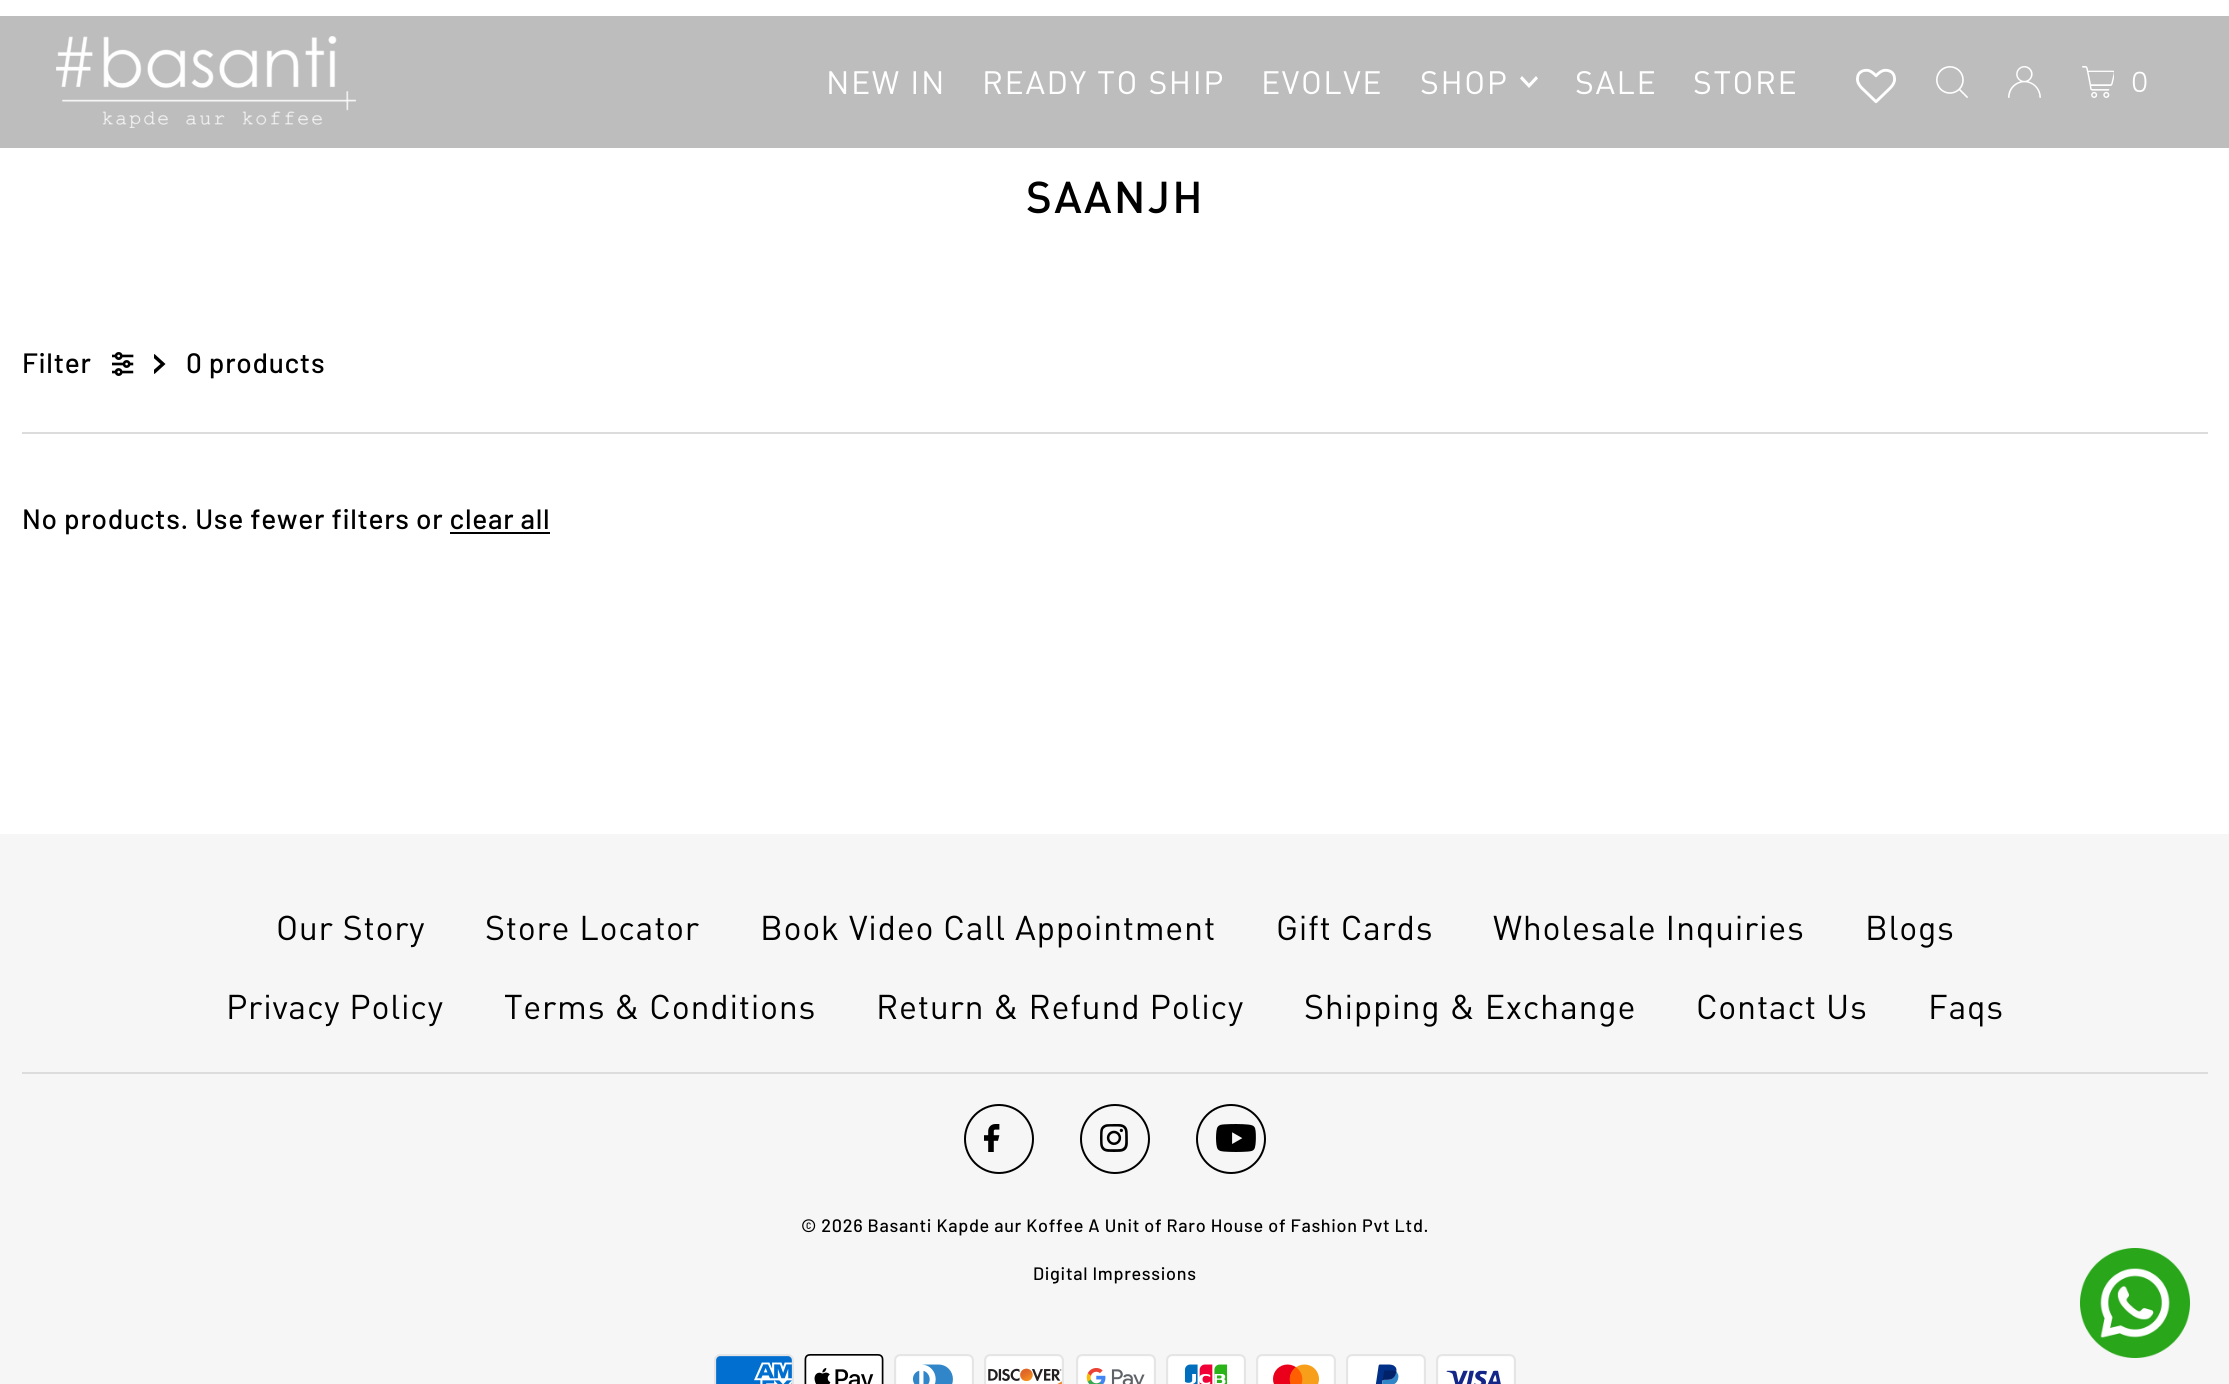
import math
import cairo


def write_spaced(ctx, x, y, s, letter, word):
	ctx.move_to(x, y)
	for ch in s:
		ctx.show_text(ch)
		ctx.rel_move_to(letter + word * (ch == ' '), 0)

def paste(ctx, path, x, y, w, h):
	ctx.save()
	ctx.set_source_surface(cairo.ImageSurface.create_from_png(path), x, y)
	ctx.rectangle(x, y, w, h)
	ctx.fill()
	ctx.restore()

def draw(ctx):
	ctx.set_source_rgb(1, 1, 1)
	ctx.paint()
	ctx.set_source_rgb(0.741, 0.741, 0.741)
	ctx.rectangle(0, 16, 2229, 132)
	ctx.fill()
	paste(ctx, 'media/1.png', 56, 36, 300, 92)
	ctx.select_font_face('DIN')
	ctx.set_font_size(32)
	ctx.set_source_rgb(1, 1, 1)
	for x, y, s in [
		(826, 94, 'NEW IN'),
		(982, 94, 'READY TO SHIP'),
		(1261, 94, 'EVOLVE'),
		(1420, 94, 'SHOP'),
	]:
		write_spaced(ctx, x, y, s, 1.6, 0)
	ctx.new_path()
	ctx.move_to(1536, 76)
	ctx.line_to(1529, 83.5)
	ctx.line_to(1522, 76)
	ctx.line_to(1520, 78.5)
	ctx.line_to(1529, 88)
	ctx.line_to(1538, 78.5)
	ctx.close_path()
	ctx.fill()
	write_spaced(ctx, 1575, 94, 'SALE', 1.6, 0)
	write_spaced(ctx, 1693, 94, 'STORE', 1.6, 0)
	paste(ctx, 'media/2.png', 1856, 68, 40, 36)
	paste(ctx, 'media/3.png', 1936, 66, 32, 32)
	paste(ctx, 'media/4.png', 2008, 66, 33, 32)
	paste(ctx, 'media/5.png', 2082, 66, 32, 32)
	ctx.select_font_face('Poppins Light')
	ctx.set_font_size(28)
	write_spaced(ctx, 2131, 92, '0', 1, 0)
	ctx.select_font_face('DIN Medium')
	ctx.set_font_size(44)
	ctx.set_source_rgb(0, 0, 0)
	write_spaced(ctx, 1026, 213, 'SAANJH', 2.25, 0)
	ctx.set_source_rgb(0.863, 0.863, 0.863)
	ctx.rectangle(22, 432, 2186, 2)
	ctx.fill()
	ctx.select_font_face('Barlow Medium')
	ctx.set_font_size(28)
	ctx.set_source_rgb(0, 0, 0)
	write_spaced(ctx, 22, 373, 'Filter', 0.7, 0)
	paste(ctx, 'media/6.png', 112, 352, 22, 24)
	ctx.save()
	ctx.rectangle(154, 354, 12, 20)
	ctx.clip()
	ctx.new_path()
	ctx.move_to(152, 356.5)
	ctx.line_to(154.5, 354)
	ctx.line_to(165.5, 364)
	ctx.line_to(154.5, 374)
	ctx.line_to(152, 371.5)
	ctx.line_to(160.5, 364)
	ctx.close_path()
	ctx.fill()
	ctx.restore()
	write_spaced(ctx, 186, 373, '0 products', 0.7, 0)
	write_spaced(ctx, 22, 529, 'No products. Use fewer filters or clear all', 0.7, 0)
	ctx.rectangle(450, 532, 100, 2)
	ctx.fill()
	ctx.set_source_rgb(0.961, 0.961, 0.961)
	ctx.rectangle(0, 834, 2229, 550)
	ctx.fill()
	ctx.select_font_face('DIN')
	ctx.set_font_size(34)
	ctx.set_source_rgb(0, 0, 0)
	for x, y, s in [
		(276, 940, 'Our Story'),
		(485, 940, 'Store Locator'),
		(760, 940, 'Book Video Call Appointment'),
		(1276, 940, 'Gift Cards'),
		(1493, 940, 'Wholesale Inquiries'),
		(1865, 940, 'Blogs'),
		(226, 1019, 'Privacy Policy'),
		(504, 1019, 'Terms & Conditions'),
		(876, 1019, 'Return & Refund Policy'),
		(1304, 1019, 'Shipping & Exchange'),
		(1696, 1019, 'Contact Us'),
		(1928, 1019, 'Faqs'),
	]:
		write_spaced(ctx, x, y, s, 0.7, 0)
	ctx.set_source_rgb(0.863, 0.863, 0.863)
	ctx.rectangle(22, 1072, 2186, 2)
	ctx.fill()
	ctx.arc(999, 1139, 34, 0, 2 * math.pi)
	ctx.set_source_rgb(0, 0, 0)
	ctx.stroke()
	paste(ctx, 'media/7.png', 984, 1124, 16, 28)
	ctx.arc(1115, 1139, 34, 0, 2 * math.pi)
	ctx.stroke()
	paste(ctx, 'media/8.png', 1100, 1124, 28, 28)
	ctx.arc(1231, 1139, 34, 0, 2 * math.pi)
	ctx.stroke()
	paste(ctx, 'media/9.png', 1216, 1124, 40, 28)
	ctx.select_font_face('Barlow Medium')
	ctx.set_font_size(18)
	write_spaced(ctx, 801, 1232, '© 2026 Basanti Kapde aur Koffee A Unit of Raro House of Fashion Pvt Ltd.', 0.7, 0)
	write_spaced(ctx, 1033, 1280, 'Digital Impressions', 0.7, 0)
	paste(ctx, 'media/10.png', 714, 1354, 80, 30)
	paste(ctx, 'media/11.png', 804, 1354, 80, 30)
	paste(ctx, 'media/12.png', 894, 1354, 80, 30)
	paste(ctx, 'media/13.png', 984, 1354, 80, 30)
	paste(ctx, 'media/14.png', 1076, 1354, 80, 30)
	paste(ctx, 'media/15.png', 1166, 1354, 80, 30)
	paste(ctx, 'media/16.png', 1256, 1354, 80, 30)
	paste(ctx, 'media/17.png', 1346, 1354, 80, 30)
	paste(ctx, 'media/18.png', 1436, 1354, 80, 30)
	paste(ctx, 'media/19.png', 2080, 1248, 110, 110)


surface = cairo.ImageSurface(cairo.FORMAT_RGB24, 2229, 1384)
ctx = cairo.Context(surface)
options = cairo.FontOptions()
options.set_hint_metrics(cairo.HINT_METRICS_OFF)
options.set_hint_style(cairo.HINT_STYLE_NONE)
ctx.set_font_options(options)
ctx.set_miter_limit(4)
draw(ctx)
surface.write_to_png('image.png')
